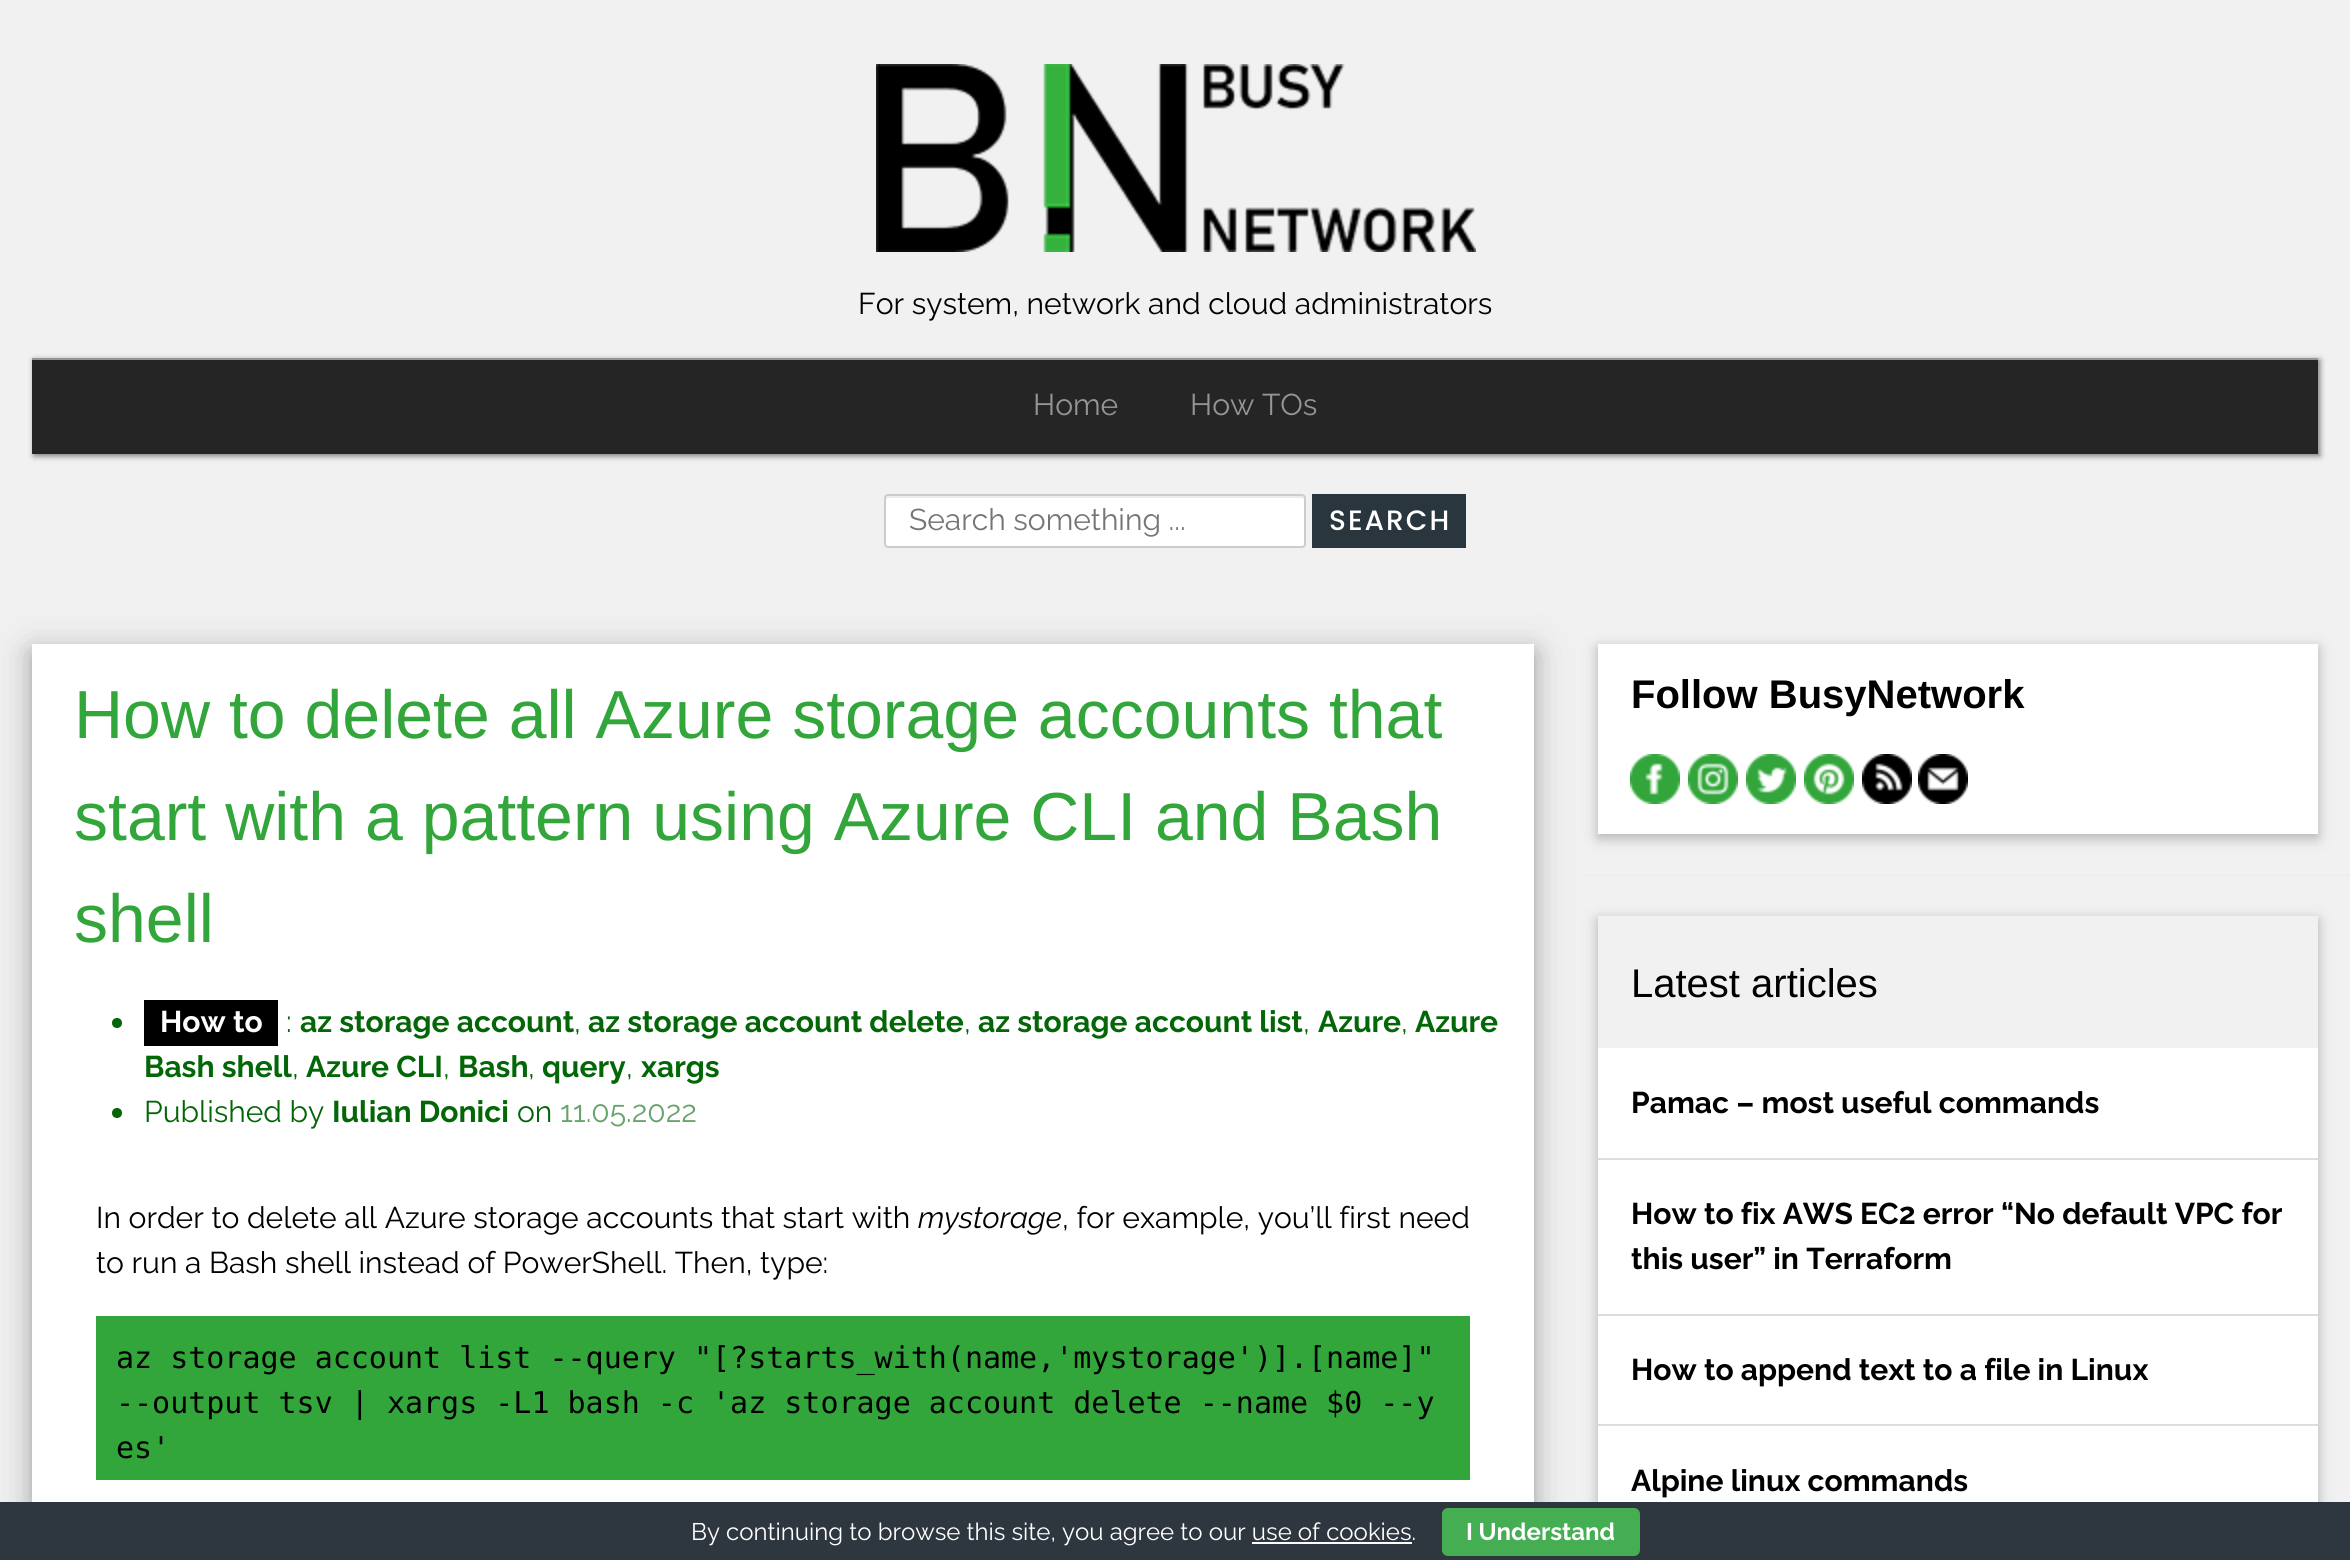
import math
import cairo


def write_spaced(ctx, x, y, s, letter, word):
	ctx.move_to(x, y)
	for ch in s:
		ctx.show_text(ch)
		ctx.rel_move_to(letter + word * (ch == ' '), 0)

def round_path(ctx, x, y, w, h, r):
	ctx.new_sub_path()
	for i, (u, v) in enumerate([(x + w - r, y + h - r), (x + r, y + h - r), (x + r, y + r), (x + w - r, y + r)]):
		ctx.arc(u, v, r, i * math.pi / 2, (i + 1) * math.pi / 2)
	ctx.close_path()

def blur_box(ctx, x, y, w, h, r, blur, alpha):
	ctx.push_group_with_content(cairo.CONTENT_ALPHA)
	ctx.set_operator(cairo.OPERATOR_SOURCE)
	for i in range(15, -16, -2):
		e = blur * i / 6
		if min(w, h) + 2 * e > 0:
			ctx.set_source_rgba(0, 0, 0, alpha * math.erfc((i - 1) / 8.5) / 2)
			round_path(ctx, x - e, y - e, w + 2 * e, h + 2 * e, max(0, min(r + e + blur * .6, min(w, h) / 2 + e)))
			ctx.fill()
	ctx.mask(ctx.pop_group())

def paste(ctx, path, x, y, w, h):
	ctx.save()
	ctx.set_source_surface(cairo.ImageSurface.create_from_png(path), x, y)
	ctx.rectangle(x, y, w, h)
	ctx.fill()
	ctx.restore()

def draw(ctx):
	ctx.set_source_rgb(0.945, 0.945, 0.945)
	ctx.paint()
	paste(ctx, 'media/1.png', 876, 64, 600, 188)
	ctx.select_font_face('Raleway')
	ctx.set_font_size(30)
	ctx.set_source_rgb(0, 0, 0)
	ctx.move_to(858, 314)
	ctx.show_text('For system, network and cloud administrators')
	ctx.set_source_rgb(0, 0, 0)
	blur_box(ctx, 34, 360, 2286, 96, 0, 3, 0.5)
	ctx.set_source_rgb(0.145, 0.145, 0.145)
	ctx.rectangle(32, 360, 2286, 94)
	ctx.fill()
	ctx.set_source_rgb(0.584, 0.584, 0.584)
	ctx.rectangle(32, 358, 2286, 2)
	ctx.fill()
	ctx.move_to(1033, 415)
	ctx.show_text('Home')
	ctx.move_to(1190, 415)
	ctx.show_text('How TOs')
	ctx.set_source_rgb(1, 1, 1)
	round_path(ctx, 884, 494, 422, 54, 4)
	ctx.fill()
	ctx.set_source_rgb(0.925, 0.925, 0.925)
	ctx.new_path()
	ctx.move_to(888, 498)
	ctx.line_to(1302, 498)
	ctx.curve_to(1303, 498, 1304, 499, 1304, 500)
	ctx.curve_to(1304, 498, 1304, 496, 1302, 496)
	ctx.line_to(888, 496)
	ctx.line_to(886, 497)
	ctx.line_to(886, 500)
	ctx.curve_to(886, 499, 887, 498, 888, 498)
	ctx.close_path()
	ctx.fill()
	round_path(ctx, 885, 495, 420, 52, 3)
	ctx.set_source_rgb(0.8, 0.8, 0.8)
	ctx.stroke()
	ctx.set_source_rgb(0.459, 0.459, 0.459)
	ctx.move_to(909, 530)
	ctx.show_text('Search something ...')
	ctx.set_source_rgb(0.161, 0.212, 0.243)
	ctx.rectangle(1312, 494, 154, 54)
	ctx.fill()
	ctx.select_font_face('Poppins Medium')
	ctx.set_font_size(28)
	ctx.set_source_rgb(1, 1, 1)
	write_spaced(ctx, 1329, 530, 'SEARCH', 2, 0)
	ctx.set_source_rgb(0, 0, 0)
	blur_box(ctx, 32, 652, 1502, 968, 0, 20, 0.19)
	blur_box(ctx, 32, 652, 1502, 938, 0, 10, 0.2)
	ctx.set_source_rgb(1, 1, 1)
	ctx.rectangle(32, 644, 1502, 858)
	ctx.fill()
	ctx.select_font_face('Liberation Sans')
	ctx.set_font_size(68)
	ctx.set_source_rgb(0.196, 0.651, 0.227)
	for x, y, s in [
		(74, 738, 'How to delete all Azure storage accounts that'),
		(74, 840, 'start with a pattern using Azure CLI and Bash'),
		(74, 942, 'shell'),
	]:
		ctx.move_to(x, y)
		ctx.show_text(s)
	ctx.set_source_rgb(0.012, 0.4, 0.031)
	ctx.new_path()
	ctx.arc(117, 1023, 5, 0, 2 * math.pi)
	ctx.fill()
	ctx.set_source_rgb(0, 0, 0)
	ctx.rectangle(144, 1000, 134, 46)
	ctx.fill()
	ctx.select_font_face('Raleway', cairo.FONT_SLANT_NORMAL, cairo.FONT_WEIGHT_BOLD)
	ctx.set_font_size(30)
	ctx.set_source_rgb(1, 1, 1)
	ctx.move_to(160, 1032)
	ctx.show_text('How to')
	ctx.select_font_face('Raleway')
	ctx.set_source_rgb(0.012, 0.4, 0.031)
	ctx.move_to(286, 1032)
	ctx.show_text(':')
	ctx.select_font_face('Raleway', cairo.FONT_SLANT_NORMAL, cairo.FONT_WEIGHT_BOLD)
	for x, y, s in [
		(300, 1032, 'az storage account'),
		(588, 1032, 'az storage account delete'),
		(978, 1032, 'az storage account list'),
		(1318, 1032, 'Azure'),
		(1415, 1032, 'Azure'),
	]:
		ctx.move_to(x, y)
		ctx.show_text(s)
	ctx.select_font_face('Raleway')
	for x, y, s in [
		(574, 1032, ','),
		(964, 1032, ','),
		(1303, 1032, ','),
		(1401, 1032, ','),
	]:
		ctx.move_to(x, y)
		ctx.show_text(s)
	ctx.select_font_face('Raleway', cairo.FONT_SLANT_NORMAL, cairo.FONT_WEIGHT_BOLD)
	ctx.move_to(144, 1077)
	ctx.show_text('Bash shell')
	ctx.select_font_face('Raleway')
	ctx.move_to(292, 1077)
	ctx.show_text(',')
	ctx.select_font_face('Raleway', cairo.FONT_SLANT_NORMAL, cairo.FONT_WEIGHT_BOLD)
	ctx.move_to(306, 1077)
	ctx.show_text('Azure CLI')
	ctx.select_font_face('Raleway')
	ctx.move_to(443, 1077)
	ctx.show_text(',')
	ctx.select_font_face('Raleway', cairo.FONT_SLANT_NORMAL, cairo.FONT_WEIGHT_BOLD)
	ctx.move_to(458, 1077)
	ctx.show_text('Bash')
	ctx.select_font_face('Raleway')
	ctx.move_to(528, 1077)
	ctx.show_text(',')
	ctx.select_font_face('Raleway', cairo.FONT_SLANT_NORMAL, cairo.FONT_WEIGHT_BOLD)
	ctx.move_to(542, 1077)
	ctx.show_text('query')
	ctx.select_font_face('Raleway')
	ctx.move_to(626, 1077)
	ctx.show_text(',')
	ctx.select_font_face('Raleway', cairo.FONT_SLANT_NORMAL, cairo.FONT_WEIGHT_BOLD)
	ctx.move_to(641, 1077)
	ctx.show_text('xargs')
	ctx.new_path()
	ctx.arc(117, 1113, 5, 0, 2 * math.pi)
	ctx.fill()
	ctx.select_font_face('Raleway')
	ctx.move_to(144, 1122)
	ctx.show_text('Published by')
	ctx.select_font_face('Raleway', cairo.FONT_SLANT_NORMAL, cairo.FONT_WEIGHT_BOLD)
	ctx.move_to(332, 1122)
	ctx.show_text('Iulian Donici')
	ctx.select_font_face('Raleway')
	ctx.move_to(517, 1122)
	ctx.show_text('on')
	ctx.set_source_rgb(0.408, 0.639, 0.42)
	ctx.move_to(560, 1122)
	ctx.show_text('11.05.2022')
	ctx.set_source_rgb(0, 0, 0)
	ctx.move_to(96, 1228)
	ctx.show_text('In order to delete all Azure storage accounts that start with')
	ctx.select_font_face('Raleway', cairo.FONT_SLANT_ITALIC)
	ctx.move_to(918, 1228)
	ctx.show_text('mystorage')
	ctx.select_font_face('Raleway')
	ctx.move_to(1062, 1228)
	ctx.show_text(', for example, you’ll first need')
	ctx.move_to(96, 1273)
	ctx.show_text('to run a Bash shell instead of PowerShell. Then, type:')
	ctx.set_source_rgb(0.196, 0.651, 0.227)
	ctx.rectangle(96, 1316, 1374, 164)
	ctx.fill()
	ctx.select_font_face('DejaVu Sans Mono')
	ctx.set_source_rgb(0, 0, 0)
	for x, y, s in [
		(116, 1368, 'az storage account list --query "[?starts_with(name,\'mystorage\')].[name]"'),
		(116, 1413, '--output tsv | xargs -L1 bash -c \'az storage account delete --name $0 --y'),
		(116, 1458, 'es\''),
	]:
		ctx.move_to(x, y)
		ctx.show_text(s)
	ctx.set_source_rgb(0, 0, 0)
	blur_box(ctx, 1598, 648, 720, 190, 0, 10, 0.12)
	blur_box(ctx, 1598, 648, 720, 190, 0, 5, 0.16)
	ctx.set_source_rgb(1, 1, 1)
	ctx.rectangle(1598, 644, 720, 190)
	ctx.fill()
	ctx.select_font_face('Liberation Sans', cairo.FONT_SLANT_NORMAL, cairo.FONT_WEIGHT_BOLD)
	ctx.set_font_size(40)
	ctx.set_source_rgb(0, 0, 0)
	ctx.move_to(1631, 708)
	ctx.show_text('Follow BusyNetwork')
	paste(ctx, 'media/2.png', 1630, 754, 50, 50)
	paste(ctx, 'media/3.png', 1688, 754, 50, 50)
	paste(ctx, 'media/4.png', 1746, 754, 50, 50)
	paste(ctx, 'media/5.png', 1804, 754, 50, 50)
	paste(ctx, 'media/6.png', 1862, 754, 50, 50)
	paste(ctx, 'media/7.png', 1918, 754, 50, 50)
	ctx.set_source_rgb(0.933, 0.933, 0.933)
	ctx.rectangle(1581, 874, 769, 2)
	ctx.fill()
	ctx.save()
	ctx.set_fill_rule(cairo.FILL_RULE_EVEN_ODD)
	ctx.new_path()
	ctx.move_to(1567, 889)
	ctx.line_to(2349, 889)
	ctx.line_to(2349, 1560)
	ctx.line_to(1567, 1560)
	ctx.close_path()
	ctx.move_to(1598, 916)
	ctx.line_to(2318, 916)
	ctx.line_to(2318, 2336)
	ctx.line_to(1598, 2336)
	ctx.close_path()
	ctx.clip()
	ctx.set_source_rgb(0, 0, 0)
	blur_box(ctx, 1598, 920, 720, 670, 0, 10, 0.12)
	ctx.restore()
	ctx.save()
	ctx.set_fill_rule(cairo.FILL_RULE_EVEN_ODD)
	ctx.new_path()
	ctx.move_to(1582, 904)
	ctx.line_to(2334, 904)
	ctx.line_to(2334, 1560)
	ctx.line_to(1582, 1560)
	ctx.close_path()
	ctx.move_to(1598, 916)
	ctx.line_to(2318, 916)
	ctx.line_to(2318, 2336)
	ctx.line_to(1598, 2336)
	ctx.close_path()
	ctx.clip()
	ctx.set_source_rgb(0, 0, 0)
	blur_box(ctx, 1598, 920, 720, 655, 0, 5, 0.16)
	ctx.restore()
	ctx.select_font_face('Liberation Sans')
	ctx.set_source_rgb(0, 0, 0)
	ctx.move_to(1631, 997)
	ctx.show_text('Latest articles')
	ctx.set_source_rgb(1, 1, 1)
	ctx.rectangle(1598, 1048, 720, 454)
	ctx.fill()
	ctx.set_source_rgb(0.867, 0.867, 0.867)
	ctx.rectangle(1598, 1158, 720, 2)
	ctx.fill()
	ctx.select_font_face('Raleway', cairo.FONT_SLANT_NORMAL, cairo.FONT_WEIGHT_BOLD)
	ctx.set_font_size(30)
	ctx.set_source_rgb(0, 0, 0)
	ctx.move_to(1631, 1113)
	ctx.show_text('Pamac – most useful commands')
	ctx.set_source_rgb(0.867, 0.867, 0.867)
	ctx.rectangle(1598, 1314, 720, 2)
	ctx.fill()
	ctx.set_source_rgb(0, 0, 0)
	ctx.move_to(1631, 1224)
	ctx.show_text('How to fix AWS EC2 error “No default VPC for')
	ctx.move_to(1631, 1269)
	ctx.show_text('this user” in Terraform')
	ctx.set_source_rgb(0.867, 0.867, 0.867)
	ctx.rectangle(1598, 1424, 720, 2)
	ctx.fill()
	ctx.set_source_rgb(0, 0, 0)
	ctx.move_to(1631, 1380)
	ctx.show_text('How to append text to a file in Linux')
	ctx.move_to(1631, 1491)
	ctx.show_text('Alpine linux commands')
	ctx.set_source_rgb(0.18, 0.212, 0.247)
	ctx.rectangle(0, 1502, 2350, 58)
	ctx.fill()
	ctx.select_font_face('Raleway')
	ctx.set_font_size(24)
	ctx.set_source_rgb(1, 1, 1)
	ctx.move_to(691, 1540)
	ctx.show_text('By continuing to browse this site, you agree to our use of cookies.')
	ctx.set_source_rgb(0.271, 0.682, 0.322)
	round_path(ctx, 1442, 1508, 198, 48, 6)
	ctx.fill()
	ctx.select_font_face('Raleway', cairo.FONT_SLANT_NORMAL, cairo.FONT_WEIGHT_BOLD)
	ctx.set_source_rgb(1, 1, 1)
	ctx.move_to(1466, 1540)
	ctx.show_text('I Understand')
	ctx.rectangle(1252, 1542, 160, 2)
	ctx.fill()


surface = cairo.ImageSurface(cairo.FORMAT_RGB24, 2350, 1560)
ctx = cairo.Context(surface)
options = cairo.FontOptions()
options.set_hint_metrics(cairo.HINT_METRICS_OFF)
options.set_hint_style(cairo.HINT_STYLE_NONE)
ctx.set_font_options(options)
ctx.set_miter_limit(4)
draw(ctx)
surface.write_to_png('image.png')
